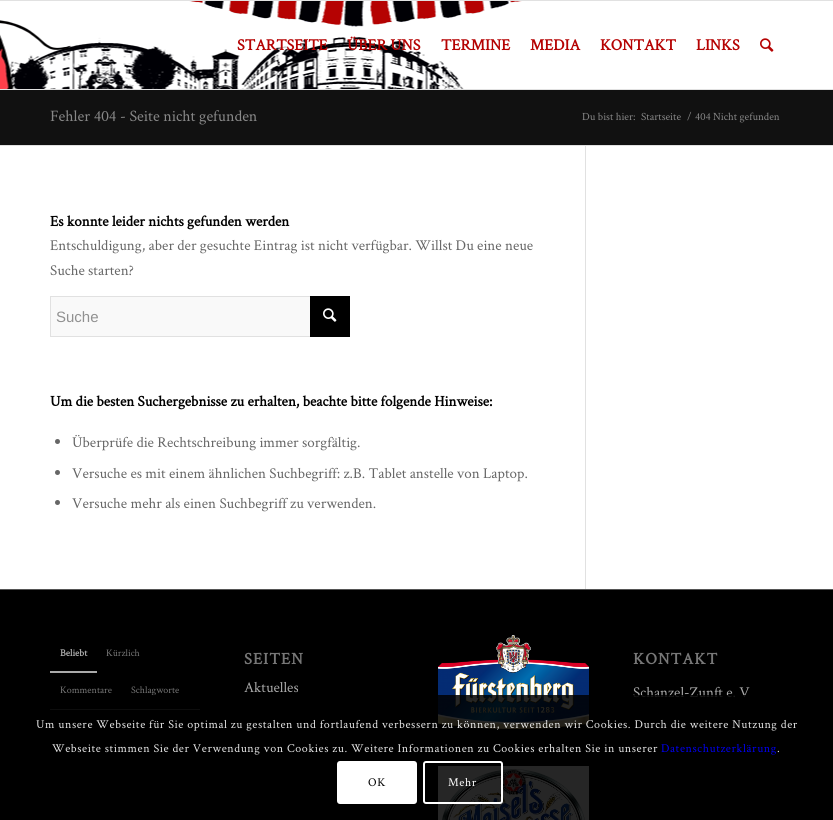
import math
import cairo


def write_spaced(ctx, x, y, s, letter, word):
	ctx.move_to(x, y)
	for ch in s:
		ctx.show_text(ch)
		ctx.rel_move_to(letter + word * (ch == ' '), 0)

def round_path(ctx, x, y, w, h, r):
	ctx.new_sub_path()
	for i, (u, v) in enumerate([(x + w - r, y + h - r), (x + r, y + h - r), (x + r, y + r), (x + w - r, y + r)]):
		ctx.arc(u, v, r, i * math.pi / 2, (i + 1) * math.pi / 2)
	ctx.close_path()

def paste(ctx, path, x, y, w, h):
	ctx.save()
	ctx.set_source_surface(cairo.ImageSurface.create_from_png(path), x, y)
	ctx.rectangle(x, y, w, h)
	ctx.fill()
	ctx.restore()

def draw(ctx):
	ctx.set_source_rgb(1, 1, 1)
	ctx.paint()
	paste(ctx, 'media/1.png', 0, 1, 522, 88)
	ctx.set_source_rgb(0.882, 0.882, 0.882)
	ctx.rectangle(0, 0, 833, 1)
	ctx.fill()
	ctx.rectangle(0, 89, 833, 1)
	ctx.fill()
	ctx.select_font_face('Crimson Text', cairo.FONT_SLANT_NORMAL, cairo.FONT_WEIGHT_BOLD)
	ctx.set_font_size(16)
	ctx.set_source_rgb(0.71, 0.008, 0.008)
	for x, y, s in [
		(237, 50, 'STARTSEITE'),
		(347, 50, 'ÜBER UNS'),
		(441, 50, 'TERMINE'),
		(530, 50, 'MEDIA'),
		(600, 50, 'KONTAKT'),
		(696, 50, 'LINKS'),
	]:
		ctx.move_to(x, y)
		ctx.show_text(s)
	paste(ctx, 'media/2.png', 760, 38, 14, 14)
	ctx.set_source_rgb(0.067, 0.067, 0.067)
	ctx.rectangle(0, 90, 833, 55)
	ctx.fill()
	ctx.select_font_face('Crimson Text')
	ctx.set_source_rgb(0.533, 0.533, 0.533)
	ctx.move_to(50, 121)
	ctx.show_text('Fehler 404 - Seite nicht gefunden')
	ctx.set_font_size(11)
	for x, y, s in [
		(582, 120, 'Du bist hier:'),
		(641, 120, 'Startseite'),
		(687, 120, '/'),
		(695, 120, '404 Nicht gefunden'),
	]:
		ctx.move_to(x, y)
		ctx.show_text(s)
	ctx.set_source_rgb(0.882, 0.882, 0.882)
	ctx.rectangle(0, 145, 833, 1)
	ctx.fill()
	ctx.rectangle(585, 146, 1, 443)
	ctx.fill()
	ctx.select_font_face('Crimson Text', cairo.FONT_SLANT_NORMAL, cairo.FONT_WEIGHT_BOLD)
	ctx.set_font_size(15)
	ctx.set_source_rgb(0, 0, 0)
	ctx.move_to(50, 226)
	ctx.show_text('Es konnte leider nichts gefunden werden')
	ctx.select_font_face('Crimson Text')
	ctx.set_source_rgb(0.4, 0.4, 0.4)
	ctx.move_to(50, 250)
	ctx.show_text('Entschuldigung, aber der gesuchte Eintrag ist nicht verfügbar. Willst Du eine neue')
	ctx.move_to(50, 275)
	ctx.show_text('Suche starten?')
	ctx.set_source_rgb(0.973, 0.973, 0.973)
	ctx.rectangle(51, 297, 259, 39)
	ctx.fill()
	ctx.rectangle(50.5, 296.5, 299, 40)
	ctx.set_source_rgb(0.882, 0.882, 0.882)
	ctx.set_line_width(1)
	ctx.stroke()
	ctx.select_font_face('Liberation Sans')
	ctx.set_source_rgb(0.569, 0.569, 0.569)
	ctx.move_to(56, 322)
	ctx.show_text('Suche')
	ctx.set_source_rgb(0, 0, 0)
	ctx.rectangle(310, 296, 40, 41)
	ctx.fill()
	paste(ctx, 'media/3.png', 323, 308, 14, 14)
	ctx.select_font_face('Crimson Text', cairo.FONT_SLANT_NORMAL, cairo.FONT_WEIGHT_BOLD)
	ctx.move_to(50, 406)
	ctx.show_text('Um die besten Suchergebnisse zu erhalten, beachte bitte folgende Hinweise:')
	ctx.set_source_rgb(0.4, 0.4, 0.4)
	ctx.new_path()
	ctx.arc(57.5, 441.5, 2.5, 0, 2 * math.pi)
	ctx.fill()
	ctx.select_font_face('Crimson Text')
	ctx.move_to(72, 447)
	ctx.show_text('Überprüfe die Rechtschreibung immer sorgfältig.')
	ctx.new_path()
	ctx.arc(57.5, 472.5, 2.5, 0, 2 * math.pi)
	ctx.fill()
	ctx.move_to(72, 478)
	ctx.show_text('Versuche es mit einem ähnlichen Suchbegriff: z.B. Tablet anstelle von Laptop.')
	ctx.new_path()
	ctx.arc(57.5, 502.5, 2.5, 0, 2 * math.pi)
	ctx.fill()
	ctx.move_to(72, 508)
	ctx.show_text('Versuche mehr als einen Suchbegriff zu verwenden.')
	ctx.set_source_rgb(0, 0, 0)
	ctx.rectangle(0, 590, 833, 230)
	ctx.fill()
	ctx.set_source_rgb(0.333, 0.333, 0.333)
	ctx.rectangle(0, 589, 833, 1)
	ctx.rectangle(50, 709, 150, 1)
	ctx.fill()
	ctx.set_source_rgb(0.667, 0.667, 0.667)
	ctx.rectangle(50, 671, 47, 2)
	ctx.fill()
	ctx.select_font_face('Crimson Text', cairo.FONT_SLANT_NORMAL, cairo.FONT_WEIGHT_BOLD)
	ctx.set_font_size(10)
	ctx.move_to(60, 656)
	ctx.show_text('Beliebt')
	ctx.select_font_face('Crimson Text')
	ctx.set_source_rgb(0.467, 0.467, 0.467)
	for x, y, s in [
		(106, 656, 'Kürzlich'),
		(60, 693, 'Kommentare'),
		(131, 693, 'Schlagworte'),
	]:
		ctx.move_to(x, y)
		ctx.show_text(s)
	ctx.select_font_face('Crimson Text', cairo.FONT_SLANT_NORMAL, cairo.FONT_WEIGHT_BOLD)
	ctx.set_font_size(16.5)
	write_spaced(ctx, 244, 664, 'SEITEN', 1, 0)
	ctx.select_font_face('Crimson Text')
	ctx.set_font_size(15)
	ctx.set_source_rgb(0.667, 0.667, 0.667)
	ctx.move_to(244, 692)
	ctx.show_text('Aktuelles')
	paste(ctx, 'media/4.png', 438, 635, 151, 94)
	paste(ctx, 'media/5.png', 438, 766, 151, 54)
	ctx.select_font_face('Crimson Text', cairo.FONT_SLANT_NORMAL, cairo.FONT_WEIGHT_BOLD)
	ctx.set_font_size(16.5)
	ctx.set_source_rgb(0.467, 0.467, 0.467)
	write_spaced(ctx, 633, 664, 'KONTAKT', 1, 0)
	ctx.select_font_face('Crimson Text')
	ctx.set_font_size(15)
	ctx.set_source_rgb(0.667, 0.667, 0.667)
	ctx.move_to(633, 697)
	ctx.show_text('Schanzel-Zunft e. V')
	ctx.set_source_rgba(0, 0, 0, 0.85)
	ctx.rectangle(50, 695, 696, 125)
	ctx.fill()
	ctx.set_font_size(12)
	ctx.set_source_rgb(0.902, 0.902, 0.902)
	write_spaced(ctx, 36, 728, 'Um unsere Webseite für Sie optimal zu gestalten und fortlaufend verbessern zu können, verwenden wir Cookies. Durch die weitere Nutzung der', 0.6, 0)
	write_spaced(ctx, 52, 752, 'Webseite stimmen Sie der Verwendung von Cookies zu. Weitere Informationen zu Cookies erhalten Sie in unserer', 0.6, 0)
	ctx.set_source_rgb(0, 0, 0.933)
	write_spaced(ctx, 661, 752, 'Datenschutzerklärung', 0.6, 0)
	ctx.set_source_rgb(0.902, 0.902, 0.902)
	write_spaced(ctx, 777, 752, '.', 0.6, 0)
	ctx.set_source_rgb(1, 1, 1)
	round_path(ctx, 337, 761, 80, 43, 3)
	ctx.fill()
	ctx.set_source_rgb(0, 0, 0)
	write_spaced(ctx, 368, 786, 'OK', 0.6, 0)
	round_path(ctx, 424, 762, 78, 41, 2)
	ctx.set_source_rgb(1, 1, 1)
	ctx.set_line_width(2)
	ctx.stroke()
	write_spaced(ctx, 448, 786, 'Mehr', 0.6, 0)


surface = cairo.ImageSurface(cairo.FORMAT_RGB24, 833, 820)
ctx = cairo.Context(surface)
options = cairo.FontOptions()
options.set_hint_metrics(cairo.HINT_METRICS_OFF)
options.set_hint_style(cairo.HINT_STYLE_NONE)
ctx.set_font_options(options)
ctx.set_miter_limit(4)
draw(ctx)
surface.write_to_png('image.png')
